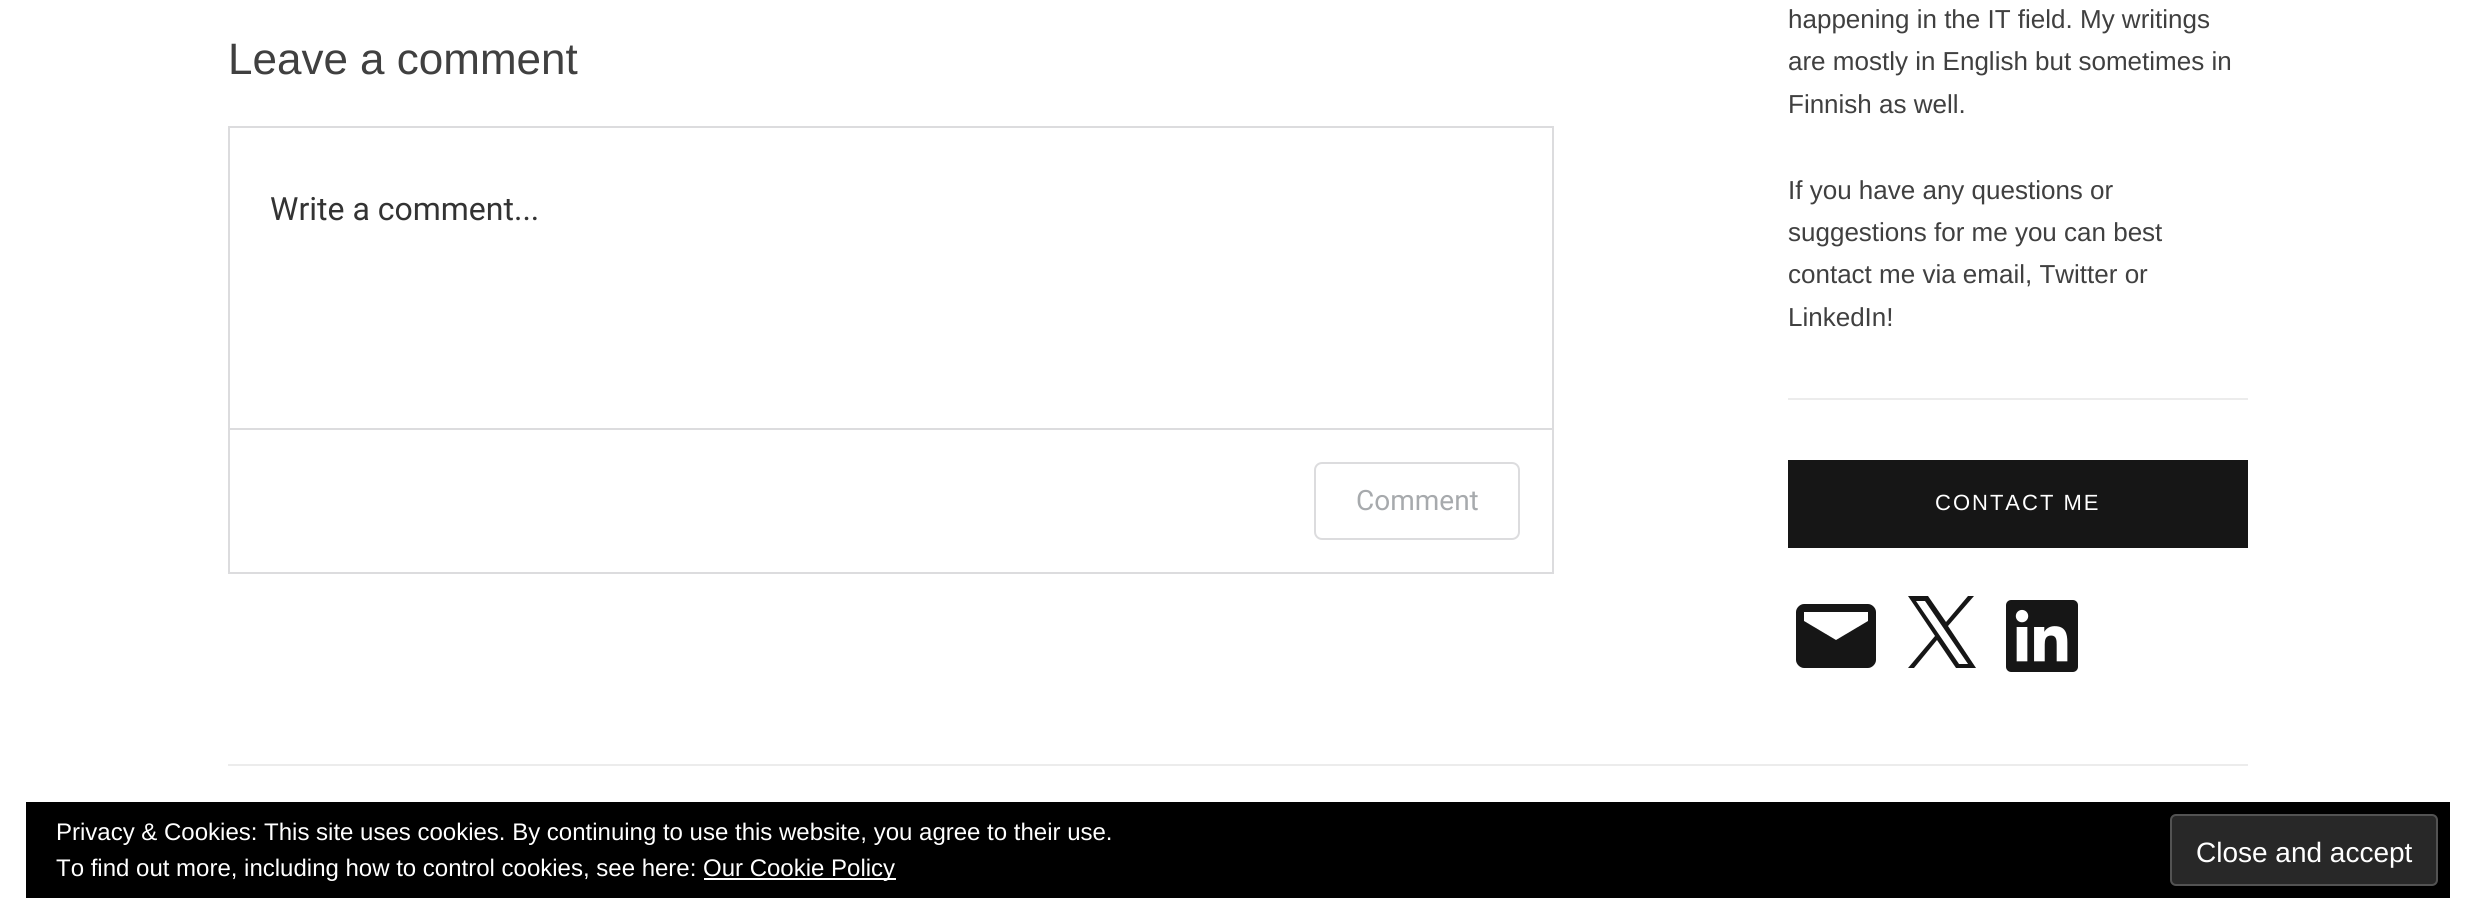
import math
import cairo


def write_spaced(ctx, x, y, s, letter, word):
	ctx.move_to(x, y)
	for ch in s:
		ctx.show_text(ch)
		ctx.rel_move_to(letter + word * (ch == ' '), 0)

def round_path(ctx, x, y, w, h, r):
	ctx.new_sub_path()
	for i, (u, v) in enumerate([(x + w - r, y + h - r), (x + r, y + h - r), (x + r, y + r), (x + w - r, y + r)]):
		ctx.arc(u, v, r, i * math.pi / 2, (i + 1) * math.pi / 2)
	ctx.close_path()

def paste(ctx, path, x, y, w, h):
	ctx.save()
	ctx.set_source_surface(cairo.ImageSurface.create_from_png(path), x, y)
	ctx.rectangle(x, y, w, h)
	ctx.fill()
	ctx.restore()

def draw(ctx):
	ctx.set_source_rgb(1, 1, 1)
	ctx.paint()
	ctx.select_font_face('Arimo')
	ctx.set_font_size(44)
	ctx.set_source_rgb(0.251, 0.251, 0.251)
	ctx.move_to(228, 74)
	ctx.show_text('Leave a comment')
	ctx.rectangle(229, 127, 1324, 446)
	ctx.set_source_rgb(0.863, 0.863, 0.871)
	ctx.stroke()
	ctx.select_font_face('Roboto')
	ctx.set_font_size(32)
	ctx.set_source_rgb(0.2, 0.2, 0.2)
	ctx.move_to(270, 220)
	ctx.show_text('Write a comment...')
	ctx.set_source_rgb(0.863, 0.863, 0.871)
	ctx.rectangle(230, 428, 1322, 2)
	ctx.fill()
	round_path(ctx, 1315, 463, 204, 76, 7)
	ctx.stroke()
	ctx.set_font_size(28)
	ctx.set_source_rgb(0.655, 0.667, 0.678)
	ctx.move_to(1356, 510)
	ctx.show_text('Comment')
	ctx.set_source_rgb(0.922, 0.922, 0.922)
	ctx.rectangle(1788, 398, 460, 2)
	ctx.fill()
	ctx.select_font_face('Arimo')
	ctx.set_font_size(26)
	ctx.set_source_rgb(0.251, 0.251, 0.251)
	for x, y, s in [
		(1788, 28, 'happening in the IT field. My writings'),
		(1788, 70, 'are mostly in English but sometimes in'),
		(1788, 113, 'Finnish as well.'),
		(1788, 199, 'If you have any questions or'),
		(1788, 241, 'suggestions for me you can best'),
		(1788, 283, 'contact me via email, Twitter or'),
		(1788, 326, 'LinkedIn!'),
	]:
		ctx.move_to(x, y)
		ctx.show_text(s)
	ctx.set_source_rgb(0.086, 0.086, 0.086)
	ctx.rectangle(1788, 460, 460, 88)
	ctx.fill()
	ctx.set_font_size(22)
	ctx.set_source_rgb(1, 1, 1)
	write_spaced(ctx, 1935, 510, 'CONTACT ME', 2, 0)
	ctx.set_source_rgb(0.086, 0.086, 0.086)
	ctx.new_path()
	ctx.move_to(1868, 604)
	ctx.line_to(1804, 604)
	ctx.curve_to(1800, 604, 1796, 608, 1796, 612)
	ctx.line_to(1796, 660)
	ctx.curve_to(1796, 664, 1800, 668, 1804, 668)
	ctx.line_to(1868, 668)
	ctx.curve_to(1872, 668, 1876, 664, 1876, 660)
	ctx.line_to(1876, 612)
	ctx.curve_to(1876, 608, 1872, 604, 1868, 604)
	ctx.close_path()
	ctx.move_to(1868, 621)
	ctx.line_to(1836, 640)
	ctx.line_to(1804, 621)
	ctx.line_to(1804, 612)
	ctx.line_to(1868, 612)
	ctx.close_path()
	ctx.fill()
	ctx.new_path()
	ctx.move_to(1948, 626)
	ctx.line_to(1974, 596)
	ctx.line_to(1968, 596)
	ctx.line_to(1946, 622)
	ctx.line_to(1928, 596)
	ctx.line_to(1908, 596)
	ctx.line_to(1935, 636)
	ctx.line_to(1908, 668)
	ctx.line_to(1914, 668)
	ctx.line_to(1937, 640)
	ctx.line_to(1956, 668)
	ctx.line_to(1976, 668)
	ctx.close_path()
	ctx.move_to(1940, 636)
	ctx.line_to(1916, 601)
	ctx.line_to(1925, 601)
	ctx.line_to(1968, 664)
	ctx.line_to(1959, 664)
	ctx.close_path()
	ctx.fill()
	paste(ctx, 'media/1.png', 2006, 600, 72, 72)
	ctx.set_source_rgb(0.922, 0.922, 0.922)
	ctx.rectangle(228, 764, 2020, 2)
	ctx.fill()
	ctx.set_source_rgb(0, 0, 0)
	ctx.rectangle(26, 802, 2424, 96)
	ctx.fill()
	ctx.set_font_size(24)
	ctx.set_source_rgb(1, 1, 1)
	ctx.move_to(56, 840)
	ctx.show_text('Privacy & Cookies: This site uses cookies. By continuing to use this website, you agree to their use.')
	ctx.move_to(56, 876)
	ctx.show_text('To find out more, including how to control cookies, see here:')
	ctx.rectangle(704, 878, 192, 2)
	ctx.fill()
	ctx.move_to(703, 876)
	ctx.show_text('Our Cookie Policy')
	ctx.set_source_rgb(0.157, 0.157, 0.157)
	round_path(ctx, 2171, 815, 266, 70, 5)
	ctx.fill_preserve()
	ctx.set_source_rgb(0.325, 0.325, 0.325)
	ctx.stroke()
	ctx.set_font_size(28)
	ctx.set_source_rgb(1, 1, 1)
	ctx.move_to(2196, 862)
	ctx.show_text('Close and accept')


surface = cairo.ImageSurface(cairo.FORMAT_RGB24, 2476, 923)
ctx = cairo.Context(surface)
options = cairo.FontOptions()
options.set_hint_metrics(cairo.HINT_METRICS_OFF)
options.set_hint_style(cairo.HINT_STYLE_NONE)
ctx.set_font_options(options)
ctx.set_miter_limit(4)
draw(ctx)
surface.write_to_png('image.png')
